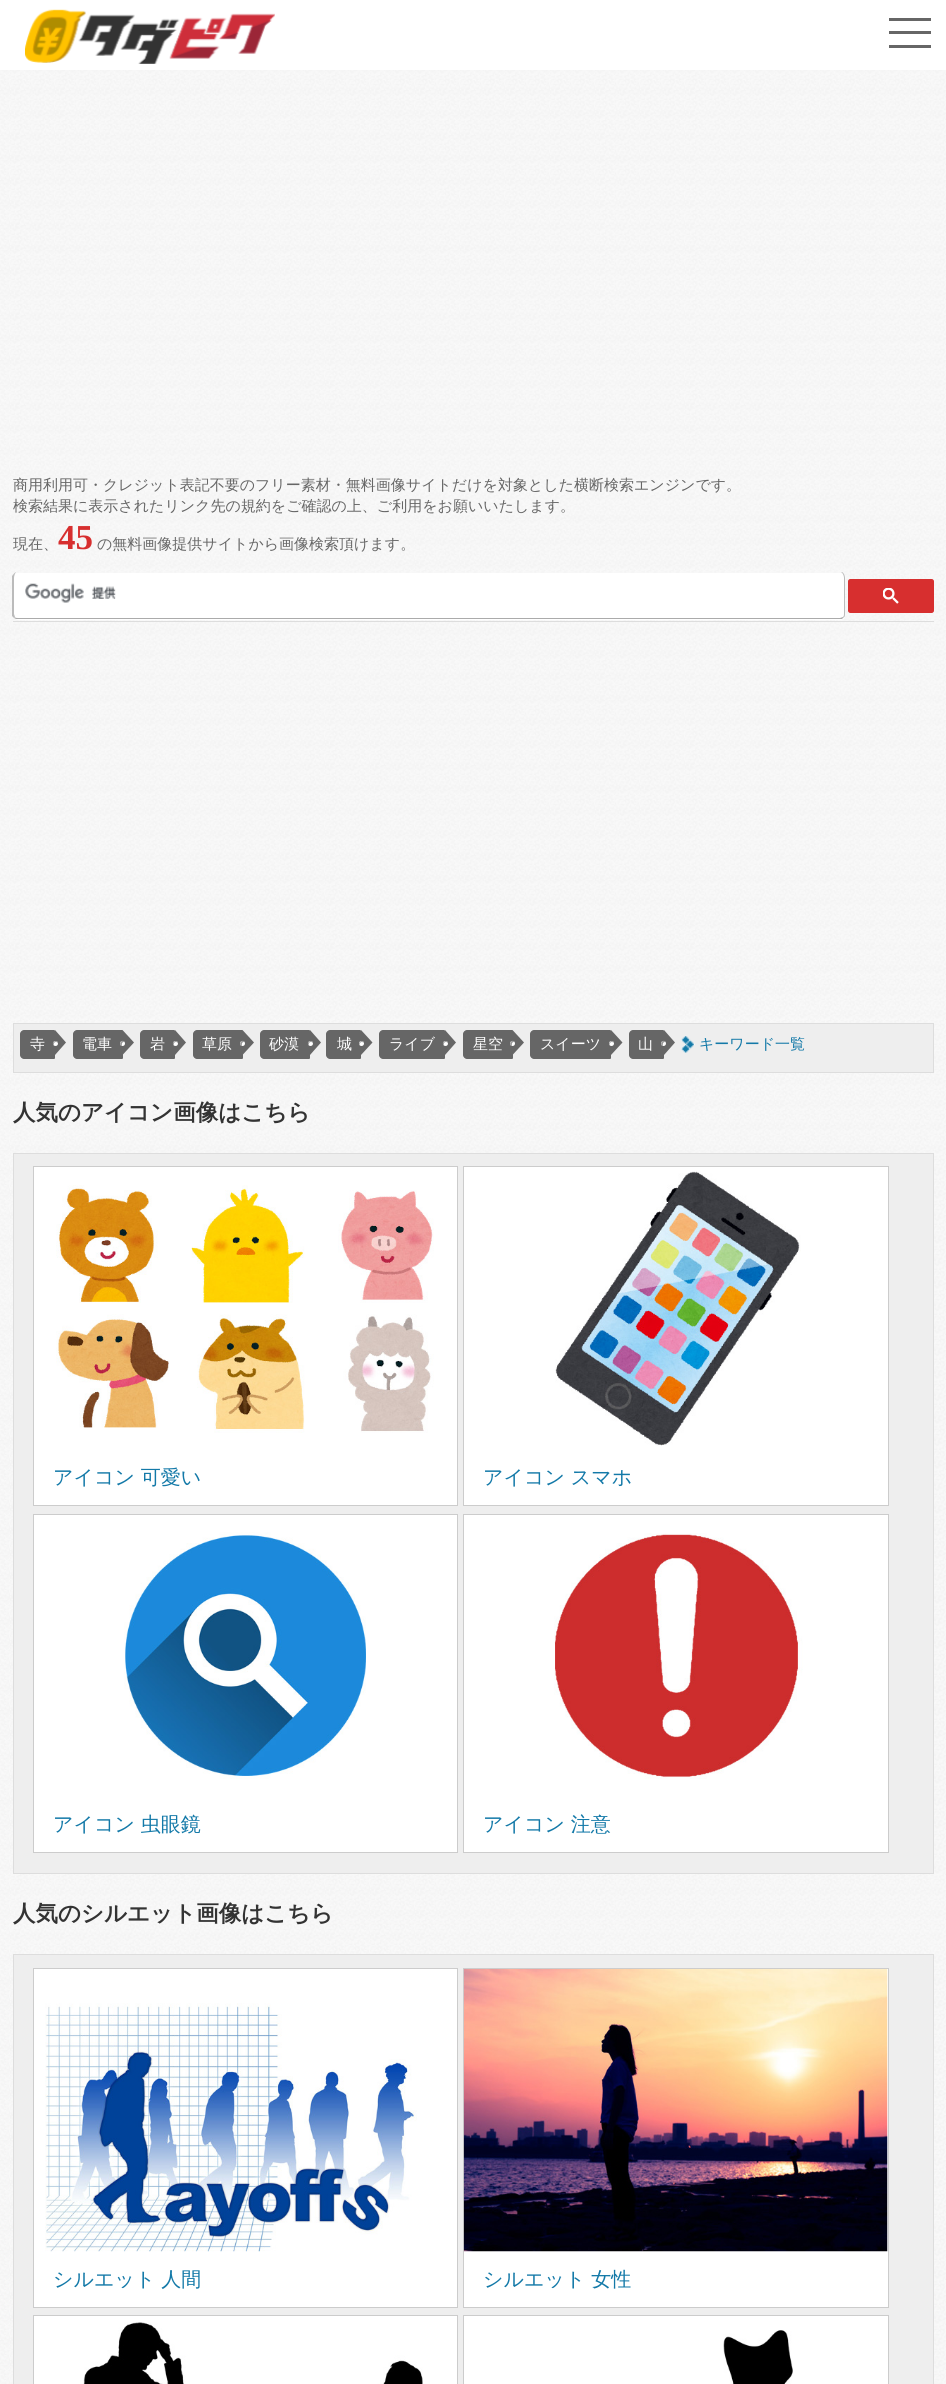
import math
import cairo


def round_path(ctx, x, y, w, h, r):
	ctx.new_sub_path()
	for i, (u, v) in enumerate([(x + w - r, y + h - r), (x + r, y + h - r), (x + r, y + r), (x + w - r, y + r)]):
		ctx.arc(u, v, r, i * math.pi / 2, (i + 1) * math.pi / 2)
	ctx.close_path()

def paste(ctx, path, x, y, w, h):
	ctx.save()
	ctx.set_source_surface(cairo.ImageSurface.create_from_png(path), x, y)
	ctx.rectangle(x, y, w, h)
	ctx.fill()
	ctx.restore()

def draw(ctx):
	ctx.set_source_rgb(1, 1, 1)
	ctx.paint()
	paste(ctx, 'media/1.png', 0, 70, 946, 2314)
	paste(ctx, 'media/2.png', 25, 9, 250, 55)
	ctx.set_source_rgb(0.4, 0.4, 0.4)
	ctx.rectangle(889, 18, 42, 3)
	ctx.rectangle(889, 31, 42, 3)
	ctx.rectangle(889, 45, 42, 3)
	ctx.fill()
	ctx.select_font_face('WenQuanYi Zen Hei Medium')
	ctx.set_font_size(15)
	for x, y, s in [
		(13, 490, '商用利用可・クレジット表記不要のフリー素材・無料画像サイトだけを対象とした横断検索エンジンです。'),
		(13, 511, '検索結果に表示されたリンク先の規約をご確認の上、ご利用をお願いいたします。'),
		(13, 549, '現在、'),
	]:
		ctx.move_to(x, y)
		ctx.show_text(s)
	ctx.select_font_face('Liberation Serif', cairo.FONT_SLANT_NORMAL, cairo.FONT_WEIGHT_BOLD)
	ctx.set_font_size(35)
	ctx.set_source_rgb(0.843, 0.184, 0.184)
	ctx.move_to(58, 549)
	ctx.show_text('45')
	ctx.select_font_face('WenQuanYi Zen Hei Medium')
	ctx.set_font_size(15)
	ctx.set_source_rgb(0.4, 0.4, 0.4)
	ctx.move_to(97, 549)
	ctx.show_text('の無料画像提供サイトから画像検索頂けます。')
	ctx.set_source_rgb(0.867, 0.867, 0.867)
	ctx.rectangle(13, 621, 921, 1)
	ctx.fill()
	ctx.set_source_rgb(1, 1, 1)
	ctx.new_path()
	ctx.move_to(13, 616)
	ctx.curve_to(14, 618, 16, 620, 18, 620)
	ctx.line_to(840, 620)
	ctx.curve_to(843, 620, 845, 618, 845, 615)
	ctx.line_to(845, 614)
	ctx.curve_to(845, 617, 843, 619, 840, 619)
	ctx.line_to(18, 619)
	ctx.curve_to(16, 619, 14, 618, 13, 616)
	ctx.close_path()
	ctx.fill()
	round_path(ctx, 13, 573, 832, 46, 5)
	ctx.fill()
	ctx.set_source_rgb(0.733, 0.733, 0.733)
	ctx.new_path()
	ctx.move_to(843, 617)
	ctx.curve_to(844, 616, 844, 615, 844, 614)
	ctx.line_to(844, 578)
	ctx.curve_to(844, 576, 843, 573, 841, 572)
	ctx.line_to(842, 572)
	ctx.curve_to(844, 573, 845, 576, 845, 578)
	ctx.line_to(845, 614)
	ctx.curve_to(845, 615, 845, 617, 844, 617)
	ctx.close_path()
	ctx.fill()
	ctx.set_source_rgb(0.671, 0.671, 0.671)
	ctx.new_path()
	ctx.move_to(16, 619)
	ctx.line_to(14, 618)
	ctx.line_to(15, 617)
	ctx.curve_to(15, 618, 17, 618, 18, 618)
	ctx.line_to(840, 618)
	ctx.line_to(843, 617)
	ctx.line_to(844, 617)
	ctx.line_to(842, 619)
	ctx.close_path()
	ctx.fill()
	ctx.set_source_rgb(0.733, 0.733, 0.733)
	ctx.new_path()
	ctx.move_to(16, 572)
	ctx.curve_to(15, 573, 14, 576, 14, 578)
	ctx.line_to(14, 614)
	ctx.line_to(15, 617)
	ctx.line_to(14, 618)
	ctx.line_to(12, 616)
	ctx.line_to(12, 576)
	ctx.curve_to(13, 575, 15, 572, 16, 572)
	ctx.close_path()
	ctx.fill()
	paste(ctx, 'media/3.png', 25, 583, 91, 20)
	ctx.set_source_rgb(0.843, 0.184, 0.184)
	round_path(ctx, 848.5, 579.5, 85, 33, 2)
	ctx.fill_preserve()
	ctx.set_line_width(1)
	ctx.stroke()
	paste(ctx, 'media/4.png', 883, 588, 16, 16)
	ctx.set_source_rgb(0.933, 0.933, 0.933)
	ctx.rectangle(13.5, 1023.5, 920, 49)
	ctx.fill_preserve()
	ctx.set_source_rgb(0.867, 0.867, 0.867)
	ctx.stroke()
	ctx.set_source_rgb(0.4, 0.4, 0.4)
	ctx.new_path()
	ctx.move_to(24, 1030)
	ctx.line_to(54, 1030)
	ctx.curve_to(54.5, 1030, 55, 1030.5, 55, 1031)
	ctx.line_to(55, 1058)
	ctx.curve_to(55, 1058.5, 54.5, 1059, 54, 1059)
	ctx.line_to(24, 1059)
	ctx.curve_to(22, 1059, 20, 1057, 20, 1055)
	ctx.line_to(20, 1034)
	ctx.curve_to(20, 1032, 22, 1030, 24, 1030)
	ctx.close_path()
	ctx.fill()
	ctx.set_source_rgb(1, 1, 1)
	ctx.move_to(30, 1049)
	ctx.show_text('寺')
	ctx.set_source_rgb(0.4, 0.4, 0.4)
	ctx.new_path()
	ctx.move_to(55, 1055)
	ctx.line_to(55, 1030)
	ctx.line_to(66, 1042.5)
	ctx.close_path()
	ctx.fill()
	ctx.set_source_rgb(1, 1, 1)
	ctx.arc(55.5, 1043.5, 2.5, 0, 2 * math.pi)
	ctx.fill()
	ctx.set_source_rgb(0.6, 0.6, 0.6)
	ctx.new_path()
	ctx.move_to(56, 1042)
	ctx.curve_to(57, 1042, 57.5, 1042.5, 58, 1043.5)
	ctx.curve_to(58, 1038.5, 50, 1042, 54, 1045.5)
	ctx.curve_to(53.5, 1043.5, 54, 1042, 56, 1042)
	ctx.close_path()
	ctx.fill()
	ctx.set_source_rgb(0.4, 0.4, 0.4)
	ctx.new_path()
	ctx.move_to(77, 1030)
	ctx.line_to(122, 1030)
	ctx.curve_to(122.5, 1030, 123, 1030.5, 123, 1031)
	ctx.line_to(123, 1058)
	ctx.curve_to(123, 1058.5, 122.5, 1059, 122, 1059)
	ctx.line_to(77, 1059)
	ctx.curve_to(75, 1059, 73, 1057, 73, 1055)
	ctx.line_to(73, 1034)
	ctx.curve_to(73, 1032, 75, 1030, 77, 1030)
	ctx.close_path()
	ctx.fill()
	ctx.set_source_rgb(1, 1, 1)
	ctx.move_to(82, 1049)
	ctx.show_text('電車')
	ctx.set_source_rgb(0.4, 0.4, 0.4)
	ctx.new_path()
	ctx.move_to(122.5, 1055)
	ctx.line_to(122.5, 1030)
	ctx.line_to(134, 1042.5)
	ctx.close_path()
	ctx.fill()
	ctx.set_source_rgb(1, 1, 1)
	ctx.arc(122.5, 1043.5, 2.5, 0, 2 * math.pi)
	ctx.fill()
	ctx.set_source_rgb(0.6, 0.6, 0.6)
	ctx.new_path()
	ctx.move_to(124, 1042)
	ctx.line_to(124.5, 1042)
	ctx.curve_to(122, 1038, 117.5, 1045, 122, 1046)
	ctx.curve_to(121.5, 1044, 122, 1042, 124, 1042)
	ctx.close_path()
	ctx.fill()
	ctx.set_source_rgb(0.4, 0.4, 0.4)
	ctx.new_path()
	ctx.move_to(144, 1030)
	ctx.line_to(174, 1030)
	ctx.curve_to(174.5, 1030, 175, 1030.5, 175, 1031)
	ctx.line_to(175, 1058)
	ctx.curve_to(175, 1058.5, 174.5, 1059, 174, 1059)
	ctx.line_to(144, 1059)
	ctx.curve_to(142, 1059, 140, 1057, 140, 1055)
	ctx.line_to(140, 1034)
	ctx.curve_to(140, 1032, 142, 1030, 144, 1030)
	ctx.close_path()
	ctx.fill()
	ctx.set_source_rgb(1, 1, 1)
	ctx.move_to(150, 1049)
	ctx.show_text('岩')
	ctx.set_source_rgb(0.4, 0.4, 0.4)
	ctx.new_path()
	ctx.move_to(175, 1055)
	ctx.line_to(175, 1030)
	ctx.line_to(186, 1042.5)
	ctx.close_path()
	ctx.fill()
	ctx.set_source_rgb(1, 1, 1)
	ctx.arc(175.5, 1043.5, 2.5, 0, 2 * math.pi)
	ctx.fill()
	ctx.set_source_rgb(0.6, 0.6, 0.6)
	ctx.new_path()
	ctx.move_to(176, 1042)
	ctx.curve_to(177, 1042, 177.5, 1042.5, 178, 1043.5)
	ctx.curve_to(178, 1038.5, 170, 1042, 174, 1045.5)
	ctx.curve_to(173.5, 1043.5, 174, 1042, 176, 1042)
	ctx.close_path()
	ctx.fill()
	ctx.set_source_rgb(0.4, 0.4, 0.4)
	ctx.new_path()
	ctx.move_to(197, 1030)
	ctx.line_to(242, 1030)
	ctx.curve_to(242.5, 1030, 243, 1030.5, 243, 1031)
	ctx.line_to(243, 1058)
	ctx.curve_to(243, 1058.5, 242.5, 1059, 242, 1059)
	ctx.line_to(197, 1059)
	ctx.curve_to(195, 1059, 193, 1057, 193, 1055)
	ctx.line_to(193, 1034)
	ctx.curve_to(193, 1032, 195, 1030, 197, 1030)
	ctx.close_path()
	ctx.fill()
	ctx.set_source_rgb(1, 1, 1)
	ctx.move_to(202, 1049)
	ctx.show_text('草原')
	ctx.set_source_rgb(0.4, 0.4, 0.4)
	ctx.new_path()
	ctx.move_to(242.5, 1055)
	ctx.line_to(242.5, 1030)
	ctx.line_to(254, 1042.5)
	ctx.close_path()
	ctx.fill()
	ctx.set_source_rgb(1, 1, 1)
	ctx.arc(242.5, 1043.5, 2.5, 0, 2 * math.pi)
	ctx.fill()
	ctx.set_source_rgb(0.6, 0.6, 0.6)
	ctx.new_path()
	ctx.move_to(244, 1042)
	ctx.line_to(244.5, 1042)
	ctx.curve_to(242, 1038, 237.5, 1045, 242, 1046)
	ctx.curve_to(241.5, 1044, 242, 1042, 244, 1042)
	ctx.close_path()
	ctx.fill()
	ctx.set_source_rgb(0.4, 0.4, 0.4)
	ctx.new_path()
	ctx.move_to(264, 1030)
	ctx.line_to(309, 1030)
	ctx.curve_to(309.5, 1030, 310, 1030.5, 310, 1031)
	ctx.line_to(310, 1058)
	ctx.curve_to(310, 1058.5, 309.5, 1059, 309, 1059)
	ctx.line_to(264, 1059)
	ctx.curve_to(262, 1059, 260, 1057, 260, 1055)
	ctx.line_to(260, 1034)
	ctx.curve_to(260, 1032, 262, 1030, 264, 1030)
	ctx.close_path()
	ctx.fill()
	ctx.set_source_rgb(1, 1, 1)
	ctx.move_to(269, 1049)
	ctx.show_text('砂漠')
	ctx.set_source_rgb(0.4, 0.4, 0.4)
	ctx.new_path()
	ctx.move_to(310, 1055)
	ctx.line_to(310, 1030)
	ctx.line_to(321, 1042.5)
	ctx.close_path()
	ctx.fill()
	ctx.set_source_rgb(1, 1, 1)
	ctx.arc(310.5, 1043.5, 2.5, 0, 2 * math.pi)
	ctx.fill()
	ctx.set_source_rgb(0.6, 0.6, 0.6)
	ctx.new_path()
	ctx.move_to(311, 1042)
	ctx.curve_to(312, 1042, 312.5, 1042.5, 313, 1043.5)
	ctx.curve_to(313, 1038.5, 305, 1042, 309, 1045.5)
	ctx.curve_to(308.5, 1043.5, 309, 1042, 311, 1042)
	ctx.close_path()
	ctx.fill()
	ctx.set_source_rgb(0.4, 0.4, 0.4)
	ctx.new_path()
	ctx.move_to(330, 1030)
	ctx.line_to(360, 1030)
	ctx.curve_to(360.5, 1030, 361, 1030.5, 361, 1031)
	ctx.line_to(361, 1058)
	ctx.curve_to(361, 1058.5, 360.5, 1059, 360, 1059)
	ctx.line_to(330, 1059)
	ctx.curve_to(328, 1059, 326, 1057, 326, 1055)
	ctx.line_to(326, 1034)
	ctx.curve_to(326, 1032, 328, 1030, 330, 1030)
	ctx.close_path()
	ctx.fill()
	ctx.set_source_rgb(1, 1, 1)
	ctx.move_to(337, 1049)
	ctx.show_text('城')
	ctx.set_source_rgb(0.4, 0.4, 0.4)
	ctx.new_path()
	ctx.move_to(361, 1055)
	ctx.line_to(361, 1030)
	ctx.line_to(372.5, 1042.5)
	ctx.close_path()
	ctx.fill()
	ctx.set_source_rgb(1, 1, 1)
	ctx.arc(361.5, 1043.5, 2.5, 0, 2 * math.pi)
	ctx.fill()
	ctx.set_source_rgb(0.6, 0.6, 0.6)
	ctx.new_path()
	ctx.move_to(362, 1042)
	ctx.line_to(364, 1042.5)
	ctx.curve_to(362.5, 1039, 357, 1042.5, 360, 1045.5)
	ctx.curve_to(359.5, 1043.5, 360, 1042, 362, 1042)
	ctx.close_path()
	ctx.fill()
	ctx.set_source_rgb(0.4, 0.4, 0.4)
	ctx.new_path()
	ctx.move_to(383, 1030)
	ctx.line_to(444, 1030)
	ctx.curve_to(444.5, 1030, 445, 1030.5, 445, 1031)
	ctx.line_to(445, 1058)
	ctx.curve_to(445, 1058.5, 444.5, 1059, 444, 1059)
	ctx.line_to(383, 1059)
	ctx.curve_to(381, 1059, 379, 1057, 379, 1055)
	ctx.line_to(379, 1034)
	ctx.curve_to(379, 1032, 381, 1030, 383, 1030)
	ctx.close_path()
	ctx.fill()
	ctx.set_source_rgb(1, 1, 1)
	ctx.move_to(389, 1049)
	ctx.show_text('ライブ')
	ctx.set_source_rgb(0.4, 0.4, 0.4)
	ctx.new_path()
	ctx.move_to(445, 1055)
	ctx.line_to(445, 1030)
	ctx.line_to(456, 1042.5)
	ctx.close_path()
	ctx.fill()
	ctx.set_source_rgb(1, 1, 1)
	ctx.arc(445.5, 1043.5, 2.5, 0, 2 * math.pi)
	ctx.fill()
	ctx.set_source_rgb(0.6, 0.6, 0.6)
	ctx.new_path()
	ctx.move_to(446, 1042)
	ctx.curve_to(447, 1042, 447.5, 1042.5, 448, 1043.5)
	ctx.curve_to(448, 1038.5, 440, 1042, 444, 1045.5)
	ctx.curve_to(443.5, 1043.5, 444, 1042, 446, 1042)
	ctx.close_path()
	ctx.fill()
	ctx.set_source_rgb(0.4, 0.4, 0.4)
	ctx.new_path()
	ctx.move_to(467, 1030)
	ctx.line_to(512, 1030)
	ctx.curve_to(512.5, 1030, 513, 1030.5, 513, 1031)
	ctx.line_to(513, 1058)
	ctx.curve_to(513, 1058.5, 512.5, 1059, 512, 1059)
	ctx.line_to(467, 1059)
	ctx.curve_to(465, 1059, 463, 1057, 463, 1055)
	ctx.line_to(463, 1034)
	ctx.curve_to(463, 1032, 465, 1030, 467, 1030)
	ctx.close_path()
	ctx.fill()
	ctx.set_source_rgb(1, 1, 1)
	ctx.move_to(473, 1049)
	ctx.show_text('星空')
	ctx.set_source_rgb(0.4, 0.4, 0.4)
	ctx.new_path()
	ctx.move_to(512.5, 1055)
	ctx.line_to(512.5, 1030)
	ctx.line_to(524, 1042.5)
	ctx.close_path()
	ctx.fill()
	ctx.set_source_rgb(1, 1, 1)
	ctx.arc(512.5, 1043.5, 2.5, 0, 2 * math.pi)
	ctx.fill()
	ctx.set_source_rgb(0.6, 0.6, 0.6)
	ctx.new_path()
	ctx.move_to(514, 1042)
	ctx.line_to(514.5, 1042)
	ctx.curve_to(512, 1038, 507.5, 1045, 512, 1046)
	ctx.curve_to(511.5, 1044, 512, 1042, 514, 1042)
	ctx.close_path()
	ctx.fill()
	ctx.set_source_rgb(0.4, 0.4, 0.4)
	ctx.new_path()
	ctx.move_to(534, 1030)
	ctx.line_to(610, 1030)
	ctx.curve_to(610.5, 1030, 611, 1030.5, 611, 1031)
	ctx.line_to(611, 1058)
	ctx.curve_to(611, 1058.5, 610.5, 1059, 610, 1059)
	ctx.line_to(534, 1059)
	ctx.curve_to(532, 1059, 530, 1057, 530, 1055)
	ctx.line_to(530, 1034)
	ctx.curve_to(530, 1032, 532, 1030, 534, 1030)
	ctx.close_path()
	ctx.fill()
	ctx.set_source_rgb(1, 1, 1)
	ctx.move_to(540, 1049)
	ctx.show_text('スイーツ')
	ctx.set_source_rgb(0.4, 0.4, 0.4)
	ctx.new_path()
	ctx.move_to(611, 1055)
	ctx.line_to(611, 1030)
	ctx.line_to(622.5, 1042.5)
	ctx.close_path()
	ctx.fill()
	ctx.set_source_rgb(1, 1, 1)
	ctx.arc(611.5, 1043.5, 2.5, 0, 2 * math.pi)
	ctx.fill()
	ctx.set_source_rgb(0.6, 0.6, 0.6)
	ctx.new_path()
	ctx.move_to(612, 1042)
	ctx.line_to(614, 1042.5)
	ctx.curve_to(612.5, 1039, 607, 1042.5, 610, 1045.5)
	ctx.curve_to(609.5, 1043.5, 610, 1042, 612, 1042)
	ctx.close_path()
	ctx.fill()
	ctx.set_source_rgb(0.4, 0.4, 0.4)
	ctx.new_path()
	ctx.move_to(633, 1030)
	ctx.line_to(663, 1030)
	ctx.curve_to(663.5, 1030, 664, 1030.5, 664, 1031)
	ctx.line_to(664, 1058)
	ctx.curve_to(664, 1058.5, 663.5, 1059, 663, 1059)
	ctx.line_to(633, 1059)
	ctx.curve_to(631, 1059, 629, 1057, 629, 1055)
	ctx.line_to(629, 1034)
	ctx.curve_to(629, 1032, 631, 1030, 633, 1030)
	ctx.close_path()
	ctx.fill()
	ctx.set_source_rgb(1, 1, 1)
	ctx.move_to(638, 1049)
	ctx.show_text('山')
	ctx.set_source_rgb(0.4, 0.4, 0.4)
	ctx.new_path()
	ctx.move_to(664, 1055)
	ctx.line_to(664, 1030)
	ctx.line_to(675, 1042.5)
	ctx.close_path()
	ctx.fill()
	ctx.set_source_rgb(1, 1, 1)
	ctx.arc(663.5, 1043.5, 2.5, 0, 2 * math.pi)
	ctx.fill()
	ctx.set_source_rgb(0.6, 0.6, 0.6)
	ctx.new_path()
	ctx.move_to(665, 1042)
	ctx.line_to(665.5, 1042)
	ctx.curve_to(663, 1038, 658.5, 1045, 663, 1046)
	ctx.curve_to(662.5, 1044, 663, 1042, 665, 1042)
	ctx.close_path()
	ctx.fill()
	paste(ctx, 'media/5.png', 681, 1036, 14, 17)
	ctx.set_source_rgb(0.075, 0.475, 0.659)
	ctx.move_to(699, 1049)
	ctx.show_text('キーワード一覧')
	ctx.select_font_face('WenQuanYi Zen Hei', cairo.FONT_SLANT_NORMAL, cairo.FONT_WEIGHT_BOLD)
	ctx.set_font_size(22.5)
	ctx.set_source_rgb(0.2, 0.2, 0.2)
	ctx.move_to(13, 1120)
	ctx.show_text('人気のアイコン画像はこちら')
	ctx.set_source_rgb(0.933, 0.933, 0.933)
	ctx.rectangle(13.5, 1153.5, 920, 720)
	ctx.fill_preserve()
	ctx.set_source_rgb(0.867, 0.867, 0.867)
	ctx.stroke()
	ctx.set_source_rgb(1, 1, 1)
	ctx.rectangle(33.5, 1166.5, 424, 339)
	ctx.fill_preserve()
	ctx.set_source_rgb(0.8, 0.8, 0.8)
	ctx.stroke()
	paste(ctx, 'media/6.png', 56, 1185, 378, 248)
	ctx.select_font_face('WenQuanYi Zen Hei Medium')
	ctx.set_font_size(20)
	ctx.set_source_rgb(0.075, 0.475, 0.659)
	ctx.move_to(53, 1484)
	ctx.show_text('アイコン 可愛い')
	ctx.set_source_rgb(1, 1, 1)
	ctx.rectangle(463.5, 1166.5, 425, 339)
	ctx.fill_preserve()
	ctx.set_source_rgb(0.8, 0.8, 0.8)
	ctx.stroke()
	paste(ctx, 'media/7.png', 555, 1171, 246, 275)
	ctx.set_source_rgb(0.075, 0.475, 0.659)
	ctx.move_to(483, 1484)
	ctx.show_text('アイコン スマホ')
	ctx.set_source_rgb(1, 1, 1)
	ctx.rectangle(33.5, 1514.5, 424, 338)
	ctx.fill_preserve()
	ctx.set_source_rgb(0.8, 0.8, 0.8)
	ctx.stroke()
	paste(ctx, 'media/8.png', 124, 1532, 242, 247)
	ctx.set_source_rgb(0.075, 0.475, 0.659)
	ctx.move_to(53, 1831)
	ctx.show_text('アイコン 虫眼鏡')
	ctx.set_source_rgb(1, 1, 1)
	ctx.rectangle(463.5, 1514.5, 425, 338)
	ctx.fill_preserve()
	ctx.set_source_rgb(0.8, 0.8, 0.8)
	ctx.stroke()
	paste(ctx, 'media/9.png', 554, 1533, 249, 246)
	ctx.set_source_rgb(0.075, 0.475, 0.659)
	ctx.move_to(483, 1831)
	ctx.show_text('アイコン 注意')
	ctx.select_font_face('WenQuanYi Zen Hei', cairo.FONT_SLANT_NORMAL, cairo.FONT_WEIGHT_BOLD)
	ctx.set_font_size(22.5)
	ctx.set_source_rgb(0.2, 0.2, 0.2)
	ctx.move_to(13, 1921)
	ctx.show_text('人気のシルエット画像はこちら')
	ctx.set_source_rgb(0.933, 0.933, 0.933)
	ctx.rectangle(13.5, 1954.5, 920, 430)
	ctx.fill_preserve()
	ctx.set_source_rgb(0.867, 0.867, 0.867)
	ctx.stroke()
	ctx.set_source_rgb(1, 1, 1)
	ctx.rectangle(33.5, 1968.5, 424, 339)
	ctx.fill_preserve()
	ctx.set_source_rgb(0.8, 0.8, 0.8)
	ctx.stroke()
	paste(ctx, 'media/10.png', 45, 2003, 372, 249)
	ctx.select_font_face('WenQuanYi Zen Hei Medium')
	ctx.set_font_size(20)
	ctx.set_source_rgb(0.075, 0.475, 0.659)
	ctx.move_to(53, 2286)
	ctx.show_text('シルエット 人間')
	ctx.set_source_rgb(1, 1, 1)
	ctx.rectangle(463.5, 1968.5, 425, 339)
	ctx.fill_preserve()
	ctx.set_source_rgb(0.8, 0.8, 0.8)
	ctx.stroke()
	paste(ctx, 'media/11.png', 463, 1969, 425, 283)
	ctx.set_source_rgb(0.075, 0.475, 0.659)
	ctx.move_to(483, 2286)
	ctx.show_text('シルエット 女性')
	ctx.set_source_rgb(1, 1, 1)
	ctx.rectangle(33.5, 2315.5, 424, 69)
	ctx.fill_preserve()
	ctx.set_source_rgb(0.8, 0.8, 0.8)
	ctx.stroke()
	paste(ctx, 'media/12.png', 83, 2322, 340, 62)
	ctx.set_source_rgb(1, 1, 1)
	ctx.rectangle(463.5, 2315.5, 425, 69)
	ctx.fill_preserve()
	ctx.set_source_rgb(0.8, 0.8, 0.8)
	ctx.stroke()
	paste(ctx, 'media/13.png', 723, 2330, 70, 54)


surface = cairo.ImageSurface(cairo.FORMAT_RGB24, 946, 2384)
ctx = cairo.Context(surface)
options = cairo.FontOptions()
options.set_hint_metrics(cairo.HINT_METRICS_OFF)
options.set_hint_style(cairo.HINT_STYLE_NONE)
ctx.set_font_options(options)
ctx.set_miter_limit(4)
draw(ctx)
surface.write_to_png('image.png')
